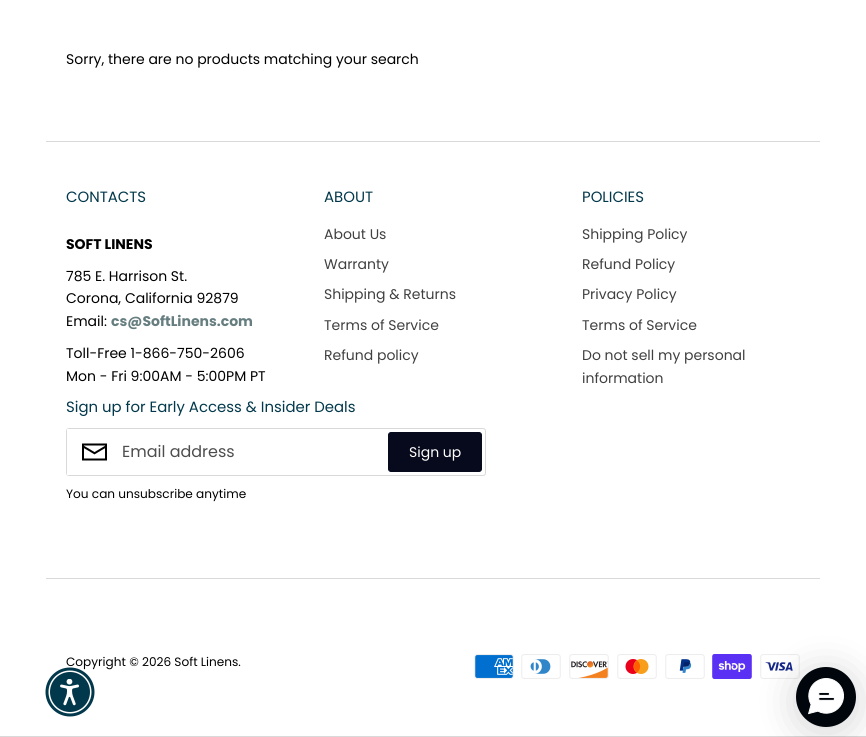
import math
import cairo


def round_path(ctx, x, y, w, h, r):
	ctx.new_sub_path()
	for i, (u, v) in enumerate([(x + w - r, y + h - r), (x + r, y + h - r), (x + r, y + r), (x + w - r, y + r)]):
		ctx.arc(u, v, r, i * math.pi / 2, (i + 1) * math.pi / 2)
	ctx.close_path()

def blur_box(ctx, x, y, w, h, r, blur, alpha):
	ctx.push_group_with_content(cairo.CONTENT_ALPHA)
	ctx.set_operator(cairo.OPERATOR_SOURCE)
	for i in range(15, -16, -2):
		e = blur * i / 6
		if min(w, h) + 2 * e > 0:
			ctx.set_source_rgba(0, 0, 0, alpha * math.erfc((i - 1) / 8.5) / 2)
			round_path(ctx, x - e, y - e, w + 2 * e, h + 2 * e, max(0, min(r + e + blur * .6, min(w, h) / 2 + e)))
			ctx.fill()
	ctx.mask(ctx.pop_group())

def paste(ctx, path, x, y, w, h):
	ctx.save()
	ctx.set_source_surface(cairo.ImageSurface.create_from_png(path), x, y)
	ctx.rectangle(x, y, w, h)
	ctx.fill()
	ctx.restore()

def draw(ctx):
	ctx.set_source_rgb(1, 1, 1)
	ctx.paint()
	ctx.select_font_face('Poppins')
	ctx.set_font_size(14)
	ctx.set_source_rgb(0, 0, 0)
	ctx.move_to(66, 64)
	ctx.show_text('Sorry, there are no products matching your search')
	ctx.set_source_rgb(0.851, 0.851, 0.851)
	ctx.rectangle(46, 141, 774, 1)
	ctx.fill()
	ctx.rectangle(46, 578, 774, 1)
	ctx.fill()
	ctx.set_font_size(14.9)
	ctx.set_source_rgb(0.008, 0.22, 0.294)
	ctx.move_to(66, 202)
	ctx.show_text('CONTACTS')
	ctx.select_font_face('Poppins', cairo.FONT_SLANT_NORMAL, cairo.FONT_WEIGHT_BOLD)
	ctx.set_font_size(14)
	ctx.set_source_rgb(0, 0, 0)
	ctx.move_to(66, 249)
	ctx.show_text('SOFT LINENS')
	ctx.select_font_face('Poppins')
	for x, y, s in [
		(66, 281, '785 E. Harrison St.'),
		(66, 303, 'Corona, California 92879'),
		(66, 326, 'Email:'),
	]:
		ctx.move_to(x, y)
		ctx.show_text(s)
	ctx.select_font_face('Poppins', cairo.FONT_SLANT_NORMAL, cairo.FONT_WEIGHT_BOLD)
	ctx.set_source_rgb(0.404, 0.494, 0.502)
	ctx.move_to(111, 326)
	ctx.show_text('cs@SoftLinens.com')
	ctx.select_font_face('Poppins')
	ctx.set_source_rgb(0, 0, 0)
	ctx.move_to(66, 358)
	ctx.show_text('Toll-Free 1-866-750-2606')
	ctx.move_to(66, 381)
	ctx.show_text('Mon - Fri 9:00AM - 5:00PM PT')
	ctx.set_font_size(14.9)
	ctx.set_source_rgb(0.008, 0.22, 0.294)
	ctx.move_to(324, 202)
	ctx.show_text('ABOUT')
	ctx.set_font_size(14)
	ctx.set_source_rgb(0.251, 0.251, 0.251)
	for x, y, s in [
		(324, 239, 'About Us'),
		(324, 269, 'Warranty'),
		(324, 299, 'Shipping & Returns'),
		(324, 330, 'Terms of Service'),
		(324, 360, 'Refund policy'),
	]:
		ctx.move_to(x, y)
		ctx.show_text(s)
	ctx.set_font_size(14.9)
	ctx.set_source_rgb(0.008, 0.22, 0.294)
	ctx.move_to(582, 202)
	ctx.show_text('POLICIES')
	ctx.set_font_size(14)
	ctx.set_source_rgb(0.251, 0.251, 0.251)
	for x, y, s in [
		(582, 239, 'Shipping Policy'),
		(582, 269, 'Refund Policy'),
		(582, 299, 'Privacy Policy'),
		(582, 330, 'Terms of Service'),
		(582, 360, 'Do not sell my personal'),
		(582, 383, 'information'),
	]:
		ctx.move_to(x, y)
		ctx.show_text(s)
	ctx.set_font_size(14.9)
	ctx.set_source_rgb(0.008, 0.22, 0.294)
	ctx.move_to(66, 412)
	ctx.show_text('Sign up for Early Access & Insider Deals')
	round_path(ctx, 66.5, 428.5, 419, 47, 2.5)
	ctx.set_source_rgb(0.851, 0.851, 0.851)
	ctx.set_line_width(1)
	ctx.stroke()
	paste(ctx, 'media/1.png', 82, 443, 25, 18)
	ctx.set_source_rgb(1, 1, 1)
	ctx.rectangle(67, 429, 2, 46)
	ctx.fill()
	ctx.set_font_size(16)
	ctx.set_source_rgb(0.302, 0.302, 0.302)
	ctx.move_to(122, 457)
	ctx.show_text('Email address')
	ctx.set_source_rgb(0.031, 0.039, 0.11)
	round_path(ctx, 388.5, 432.5, 93, 39, 2.5)
	ctx.fill_preserve()
	ctx.stroke()
	ctx.set_font_size(14)
	ctx.set_source_rgb(1, 1, 1)
	ctx.move_to(409, 457)
	ctx.show_text('Sign up')
	ctx.set_font_size(12.1)
	ctx.set_source_rgb(0, 0, 0)
	ctx.move_to(66, 498)
	ctx.show_text('You can unsubscribe anytime')
	ctx.move_to(66, 666)
	ctx.show_text('Copyright © 2026 Soft Linens.')
	paste(ctx, 'media/2.png', 474, 654, 40, 25)
	paste(ctx, 'media/3.png', 521, 654, 40, 25)
	paste(ctx, 'media/4.png', 569, 654, 40, 25)
	paste(ctx, 'media/5.png', 617, 654, 40, 25)
	paste(ctx, 'media/6.png', 665, 654, 40, 25)
	paste(ctx, 'media/7.png', 712, 654, 40, 25)
	paste(ctx, 'media/8.png', 760, 654, 40, 25)
	ctx.set_source_rgb(0.851, 0.851, 0.851)
	ctx.rectangle(0, 736, 866, 1)
	ctx.fill()
	ctx.set_source_rgb(0, 0, 0)
	blur_box(ctx, 796, 672, 60, 60, 30, 20, 0.16)
	ctx.set_source_rgb(0, 0.024, 0.043)
	ctx.arc(826, 697, 30, 0, 2 * math.pi)
	ctx.fill()
	paste(ctx, 'media/9.png', 808, 678, 36, 37)
	ctx.set_source_rgb(0.008, 0.22, 0.294)
	ctx.arc(70, 692, 24.5, 0, 2 * math.pi)
	ctx.fill()
	ctx.set_source_rgb(1, 1, 1)
	ctx.arc(70, 692, 21.5, 0, 2 * math.pi)
	ctx.fill()
	ctx.set_source_rgb(0.008, 0.22, 0.294)
	ctx.arc(70, 692, 20, 0, 2 * math.pi)
	ctx.fill()
	paste(ctx, 'media/10.png', 60, 679, 19, 27)


surface = cairo.ImageSurface(cairo.FORMAT_RGB24, 866, 737)
ctx = cairo.Context(surface)
options = cairo.FontOptions()
options.set_hint_metrics(cairo.HINT_METRICS_OFF)
options.set_hint_style(cairo.HINT_STYLE_NONE)
ctx.set_font_options(options)
ctx.set_miter_limit(4)
draw(ctx)
surface.write_to_png('image.png')
